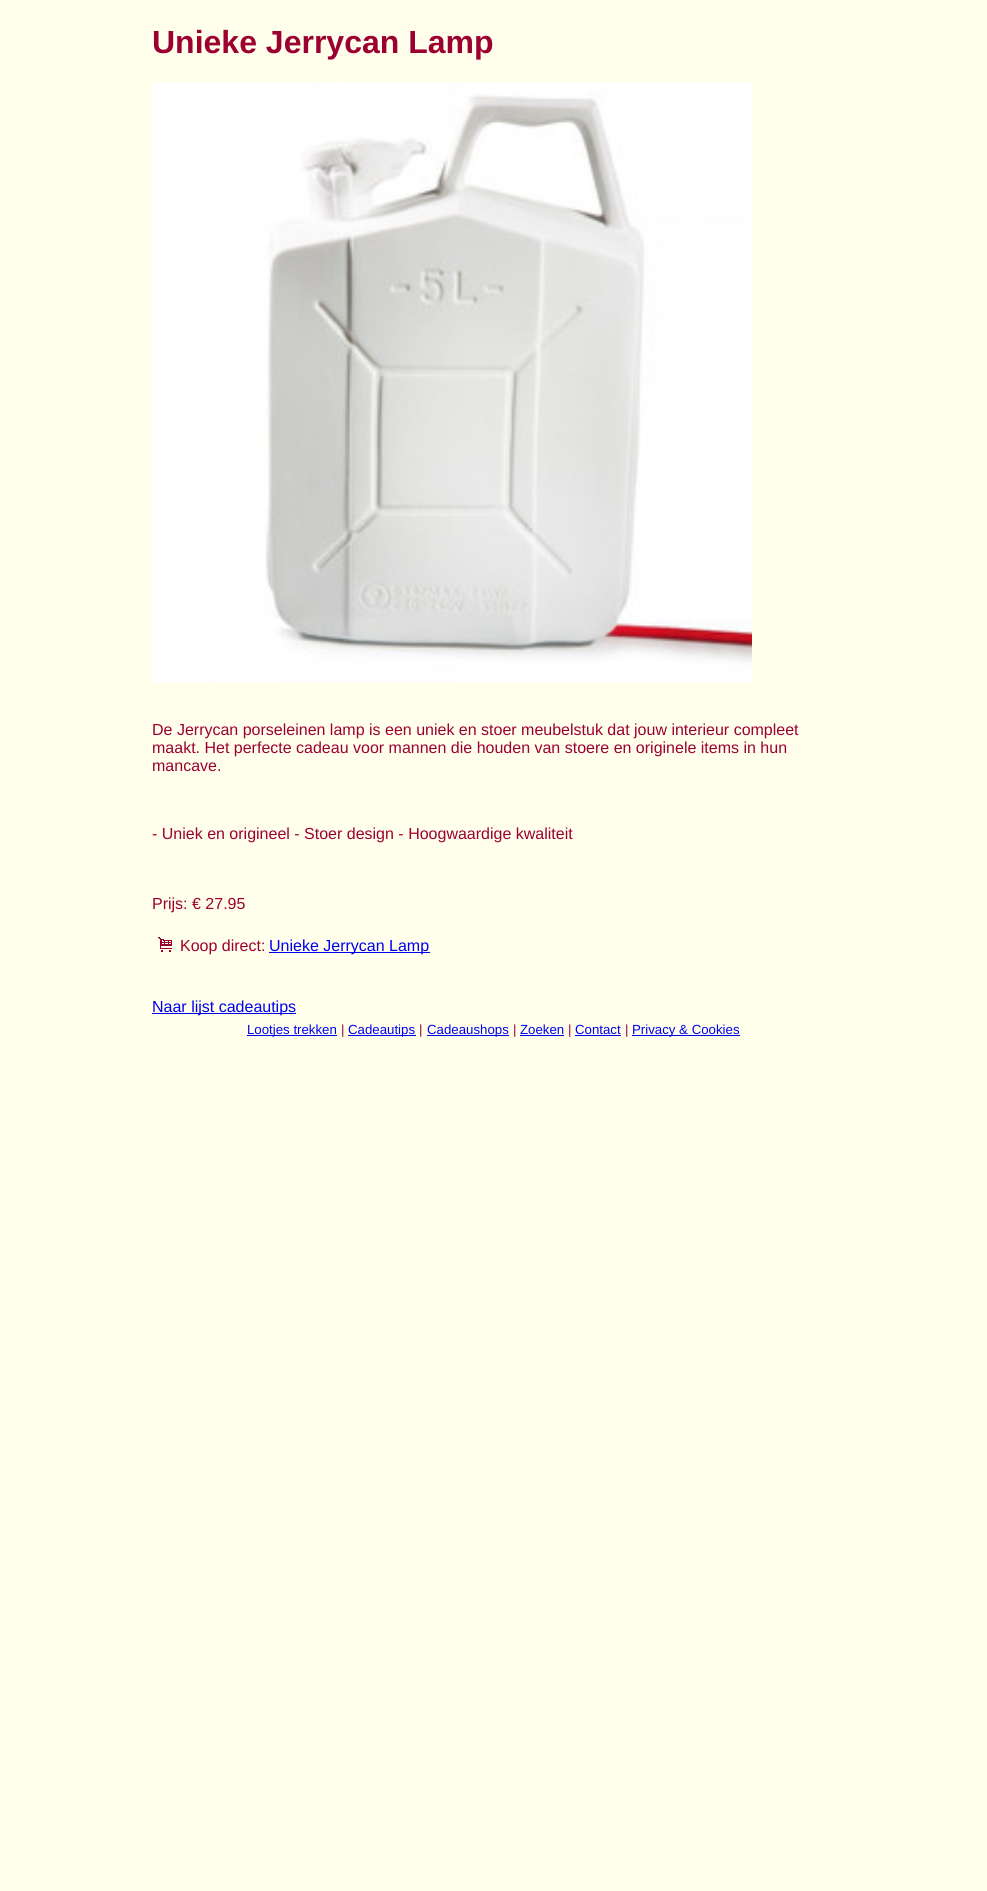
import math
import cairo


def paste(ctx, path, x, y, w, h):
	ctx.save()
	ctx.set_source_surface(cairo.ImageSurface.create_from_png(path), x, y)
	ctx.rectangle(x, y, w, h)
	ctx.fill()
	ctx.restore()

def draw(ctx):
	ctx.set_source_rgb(1, 1, 0.922)
	ctx.paint()
	ctx.select_font_face('Liberation Sans', cairo.FONT_SLANT_NORMAL, cairo.FONT_WEIGHT_BOLD)
	ctx.set_font_size(32)
	ctx.set_source_rgb(0.612, 0, 0.192)
	ctx.move_to(152, 53)
	ctx.show_text('Unieke Jerrycan Lamp')
	paste(ctx, 'media/1.png', 152, 83, 600, 600)
	ctx.select_font_face('Liberation Sans')
	ctx.set_font_size(16)
	for x, y, s in [
		(152, 735, 'De Jerrycan porseleinen lamp is een uniek en stoer meubelstuk dat jouw interieur compleet'),
		(152, 753, 'maakt. Het perfecte cadeau voor mannen die houden van stoere en originele items in hun'),
		(152, 771, 'mancave.'),
		(152, 839, '- Uniek en origineel - Stoer design - Hoogwaardige kwaliteit'),
		(152, 909, 'Prijs: € 27.95'),
	]:
		ctx.move_to(x, y)
		ctx.show_text(s)
	paste(ctx, 'media/2.png', 158, 937, 14, 15)
	ctx.move_to(180, 951)
	ctx.show_text('Koop direct:')
	ctx.set_source_rgb(0, 0, 0.933)
	ctx.rectangle(269, 952, 161, 1)
	ctx.fill()
	ctx.move_to(269, 951)
	ctx.show_text('Unieke Jerrycan Lamp')
	ctx.rectangle(152, 1013, 144, 1)
	ctx.fill()
	ctx.move_to(152, 1012)
	ctx.show_text('Naar lijst cadeautips')
	ctx.rectangle(247, 1035, 90, 1)
	ctx.fill()
	ctx.set_font_size(13.25)
	ctx.move_to(247, 1034)
	ctx.show_text('Lootjes trekken')
	ctx.set_source_rgb(0.612, 0, 0.192)
	ctx.move_to(341, 1034)
	ctx.show_text('|')
	ctx.set_source_rgb(0, 0, 0.933)
	ctx.rectangle(348, 1035, 68, 1)
	ctx.fill()
	ctx.move_to(348, 1034)
	ctx.show_text('Cadeautips')
	ctx.set_source_rgb(0.612, 0, 0.192)
	ctx.move_to(419, 1034)
	ctx.show_text('|')
	ctx.set_source_rgb(0, 0, 0.933)
	ctx.rectangle(427, 1035, 82, 1)
	ctx.fill()
	ctx.move_to(427, 1034)
	ctx.show_text('Cadeaushops')
	ctx.set_source_rgb(0.612, 0, 0.192)
	ctx.move_to(513, 1034)
	ctx.show_text('|')
	ctx.set_source_rgb(0, 0, 0.933)
	ctx.move_to(520, 1034)
	ctx.show_text('Zoeken')
	ctx.rectangle(520, 1035, 44, 1)
	ctx.fill()
	ctx.set_source_rgb(0.612, 0, 0.192)
	ctx.move_to(568, 1034)
	ctx.show_text('|')
	ctx.set_source_rgb(0, 0, 0.933)
	ctx.move_to(575, 1034)
	ctx.show_text('Contact')
	ctx.rectangle(575, 1035, 46, 1)
	ctx.fill()
	ctx.set_source_rgb(0.612, 0, 0.192)
	ctx.move_to(625, 1034)
	ctx.show_text('|')
	ctx.set_source_rgb(0, 0, 0.933)
	ctx.rectangle(632, 1035, 108, 1)
	ctx.fill()
	ctx.move_to(632, 1034)
	ctx.show_text('Privacy & Cookies')


surface = cairo.ImageSurface(cairo.FORMAT_RGB24, 987, 1891)
ctx = cairo.Context(surface)
options = cairo.FontOptions()
options.set_hint_metrics(cairo.HINT_METRICS_OFF)
options.set_hint_style(cairo.HINT_STYLE_NONE)
ctx.set_font_options(options)
ctx.set_miter_limit(4)
draw(ctx)
surface.write_to_png('image.png')
